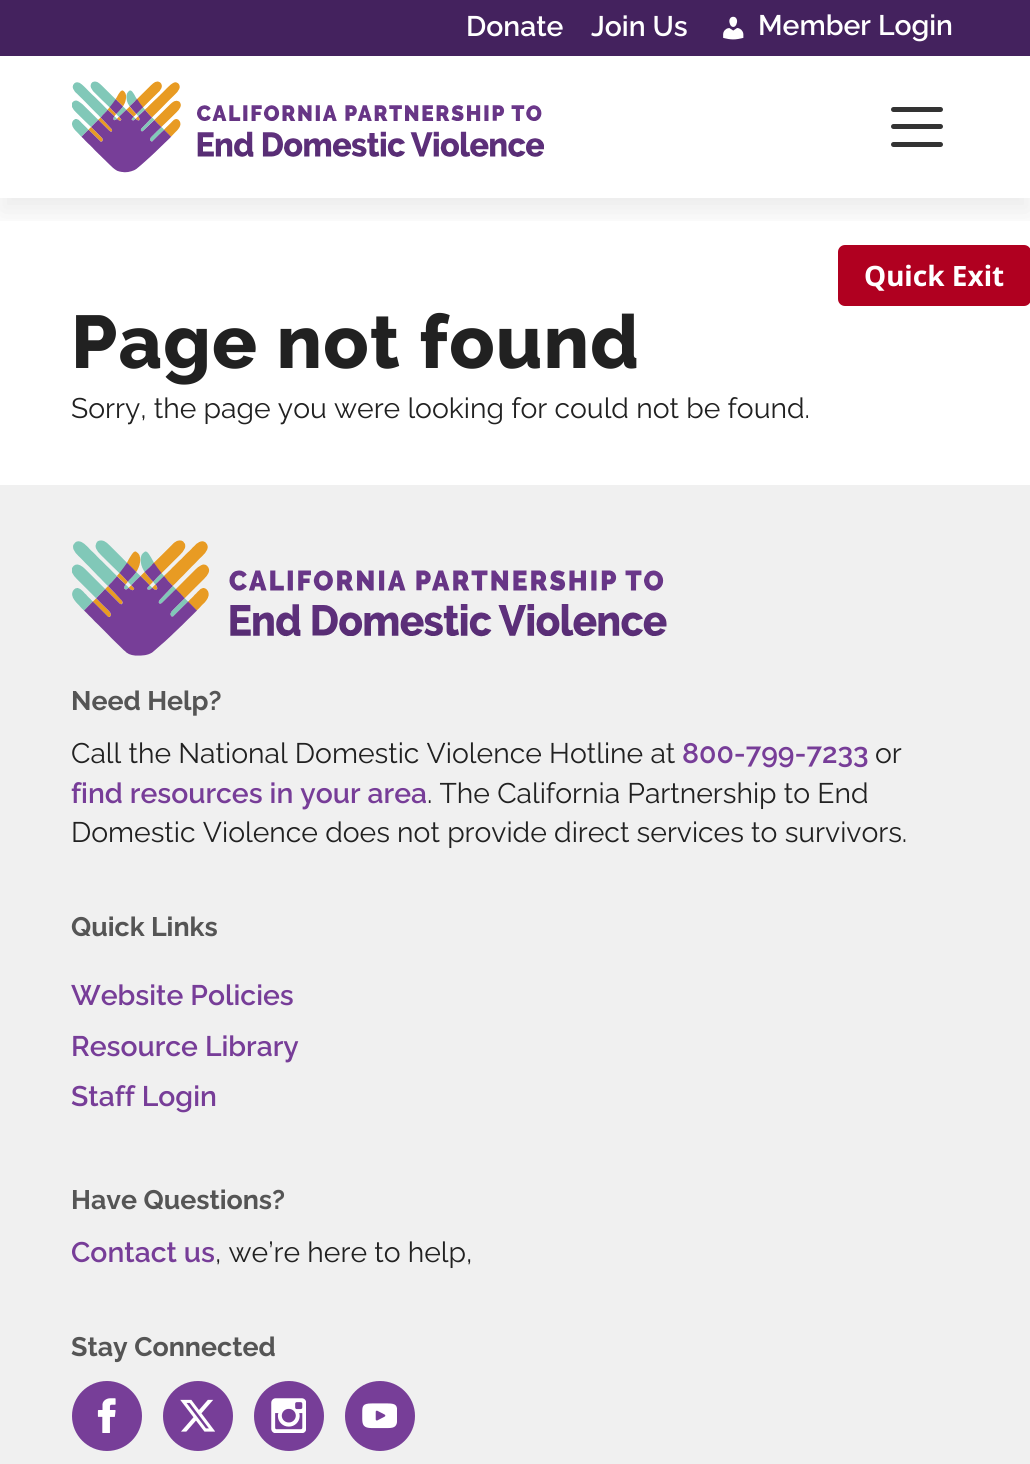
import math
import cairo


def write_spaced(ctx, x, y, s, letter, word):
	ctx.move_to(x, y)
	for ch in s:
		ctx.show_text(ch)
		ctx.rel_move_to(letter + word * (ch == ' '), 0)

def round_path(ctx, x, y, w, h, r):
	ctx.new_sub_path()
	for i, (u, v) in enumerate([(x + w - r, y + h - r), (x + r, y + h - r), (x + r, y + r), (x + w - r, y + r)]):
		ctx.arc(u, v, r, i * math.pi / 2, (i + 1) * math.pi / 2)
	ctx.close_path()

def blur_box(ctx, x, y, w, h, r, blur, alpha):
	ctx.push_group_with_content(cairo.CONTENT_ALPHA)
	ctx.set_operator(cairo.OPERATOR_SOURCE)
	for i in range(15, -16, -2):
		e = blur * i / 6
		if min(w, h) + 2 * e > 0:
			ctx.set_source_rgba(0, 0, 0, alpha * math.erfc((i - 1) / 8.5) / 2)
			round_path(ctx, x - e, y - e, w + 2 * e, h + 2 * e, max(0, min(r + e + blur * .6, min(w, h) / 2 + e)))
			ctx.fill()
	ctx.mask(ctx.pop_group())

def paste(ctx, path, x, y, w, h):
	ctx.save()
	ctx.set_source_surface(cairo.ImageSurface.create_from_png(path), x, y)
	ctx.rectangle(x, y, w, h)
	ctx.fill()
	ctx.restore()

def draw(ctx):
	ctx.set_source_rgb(1, 1, 1)
	ctx.paint()
	ctx.set_source_rgb(0.267, 0.133, 0.369)
	ctx.rectangle(0, 0, 1030, 56)
	ctx.fill()
	ctx.select_font_face('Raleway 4 Thin')
	ctx.set_font_size(28.3)
	ctx.set_source_rgb(1, 1, 1)
	ctx.move_to(466, 36)
	ctx.show_text('Donate')
	ctx.move_to(591, 36)
	ctx.show_text('Join Us')
	paste(ctx, 'media/1.png', 723, 16, 21, 24)
	ctx.move_to(758, 35)
	ctx.show_text('Member Login')
	ctx.save()
	ctx.rectangle(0, 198, 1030, 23)
	ctx.clip()
	ctx.set_source_rgb(0, 0, 0)
	blur_box(ctx, 0, 70, 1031, 142, 0, 14, 0.08)
	ctx.restore()
	paste(ctx, 'media/2.png', 72, 81, 472, 92)
	ctx.set_source_rgb(0.2, 0.2, 0.2)
	round_path(ctx, 891, 107, 52, 5, 2.5)
	ctx.fill()
	round_path(ctx, 891, 124, 52, 5, 2.5)
	ctx.fill()
	round_path(ctx, 891, 142, 52, 5, 2.5)
	ctx.fill()
	ctx.set_source_rgb(0.941, 0.941, 0.941)
	ctx.rectangle(0, 485, 1030, 979)
	ctx.fill()
	ctx.set_source_rgb(0.69, 0, 0.125)
	round_path(ctx, 838, 245, 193, 61, 7)
	ctx.fill()
	ctx.select_font_face('Noto Sans', cairo.FONT_SLANT_NORMAL, cairo.FONT_WEIGHT_BOLD)
	ctx.set_font_size(28)
	ctx.set_source_rgb(1, 1, 1)
	ctx.move_to(864, 286)
	ctx.show_text('Quick Exit')
	paste(ctx, 'media/3.png', 72, 540, 595, 116)
	ctx.select_font_face('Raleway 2 Thin')
	ctx.set_font_size(26.75)
	ctx.set_source_rgb(0.333, 0.333, 0.333)
	ctx.move_to(71, 710)
	ctx.show_text('Need Help?')
	ctx.select_font_face('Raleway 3 Thin')
	ctx.set_font_size(28.3)
	ctx.set_source_rgb(0.129, 0.129, 0.129)
	ctx.move_to(71, 763)
	ctx.show_text('Call the National Domestic Violence Hotline at')
	ctx.select_font_face('Raleway 4 Thin')
	ctx.set_source_rgb(0.467, 0.239, 0.596)
	ctx.move_to(682, 763)
	ctx.show_text('800-799-7233')
	ctx.select_font_face('Raleway 3 Thin')
	ctx.set_source_rgb(0.129, 0.129, 0.129)
	ctx.move_to(875, 763)
	ctx.show_text('or')
	ctx.select_font_face('Raleway 4 Thin')
	ctx.set_source_rgb(0.467, 0.239, 0.596)
	ctx.move_to(71, 803)
	ctx.show_text('find resources in your area')
	ctx.select_font_face('Raleway 3 Thin')
	ctx.set_source_rgb(0.129, 0.129, 0.129)
	ctx.move_to(427, 803)
	ctx.show_text('. The California Partnership to End')
	ctx.move_to(71, 842)
	ctx.show_text('Domestic Violence does not provide direct services to survivors.')
	ctx.select_font_face('Raleway 2 Thin')
	ctx.set_font_size(26.75)
	ctx.set_source_rgb(0.333, 0.333, 0.333)
	ctx.move_to(71, 936)
	ctx.show_text('Quick Links')
	ctx.select_font_face('Raleway 4 Thin')
	ctx.set_font_size(28.3)
	ctx.set_source_rgb(0.467, 0.239, 0.596)
	for x, y, s in [
		(71, 1005, 'Website Policies'),
		(71, 1056, 'Resource Library'),
		(71, 1106, 'Staff Login'),
	]:
		ctx.move_to(x, y)
		ctx.show_text(s)
	ctx.select_font_face('Raleway 2 Thin')
	ctx.set_font_size(26.75)
	ctx.set_source_rgb(0.333, 0.333, 0.333)
	ctx.move_to(71, 1209)
	ctx.show_text('Have Questions?')
	ctx.select_font_face('Raleway 4 Thin')
	ctx.set_font_size(28.3)
	ctx.set_source_rgb(0.467, 0.239, 0.596)
	ctx.move_to(71, 1262)
	ctx.show_text('Contact us')
	ctx.select_font_face('Raleway 3 Thin')
	ctx.set_source_rgb(0.129, 0.129, 0.129)
	ctx.move_to(215, 1262)
	ctx.show_text(', we’re here to help,')
	ctx.select_font_face('Raleway 2 Thin')
	ctx.set_font_size(26.75)
	ctx.set_source_rgb(0.333, 0.333, 0.333)
	ctx.move_to(71, 1356)
	ctx.show_text('Stay Connected')
	ctx.set_source_rgb(0.467, 0.243, 0.596)
	ctx.new_path()
	ctx.arc(107, 1416, 35, 0, 2 * math.pi)
	ctx.fill()
	paste(ctx, 'media/4.png', 97, 1398, 19, 35)
	ctx.arc(198, 1416, 35, 0, 2 * math.pi)
	ctx.fill()
	paste(ctx, 'media/5.png', 180, 1399, 35, 33)
	ctx.arc(289, 1416, 35, 0, 2 * math.pi)
	ctx.fill()
	paste(ctx, 'media/6.png', 271, 1398, 35, 35)
	ctx.arc(380, 1416, 35, 0, 2 * math.pi)
	ctx.fill()
	paste(ctx, 'media/7.png', 362, 1403, 35, 26)
	ctx.select_font_face('Raleway Thin')
	ctx.set_font_size(74.5)
	ctx.set_source_rgb(0.129, 0.129, 0.129)
	write_spaced(ctx, 71, 368, 'Page not found', 1.1, 0)
	ctx.select_font_face('Raleway 3 Thin')
	ctx.set_font_size(28.3)
	ctx.move_to(71, 418)
	ctx.show_text('Sorry, the page you were looking for could not be found.')


surface = cairo.ImageSurface(cairo.FORMAT_RGB24, 1030, 1464)
ctx = cairo.Context(surface)
options = cairo.FontOptions()
options.set_hint_metrics(cairo.HINT_METRICS_OFF)
options.set_hint_style(cairo.HINT_STYLE_NONE)
ctx.set_font_options(options)
ctx.set_miter_limit(4)
draw(ctx)
surface.write_to_png('image.png')
